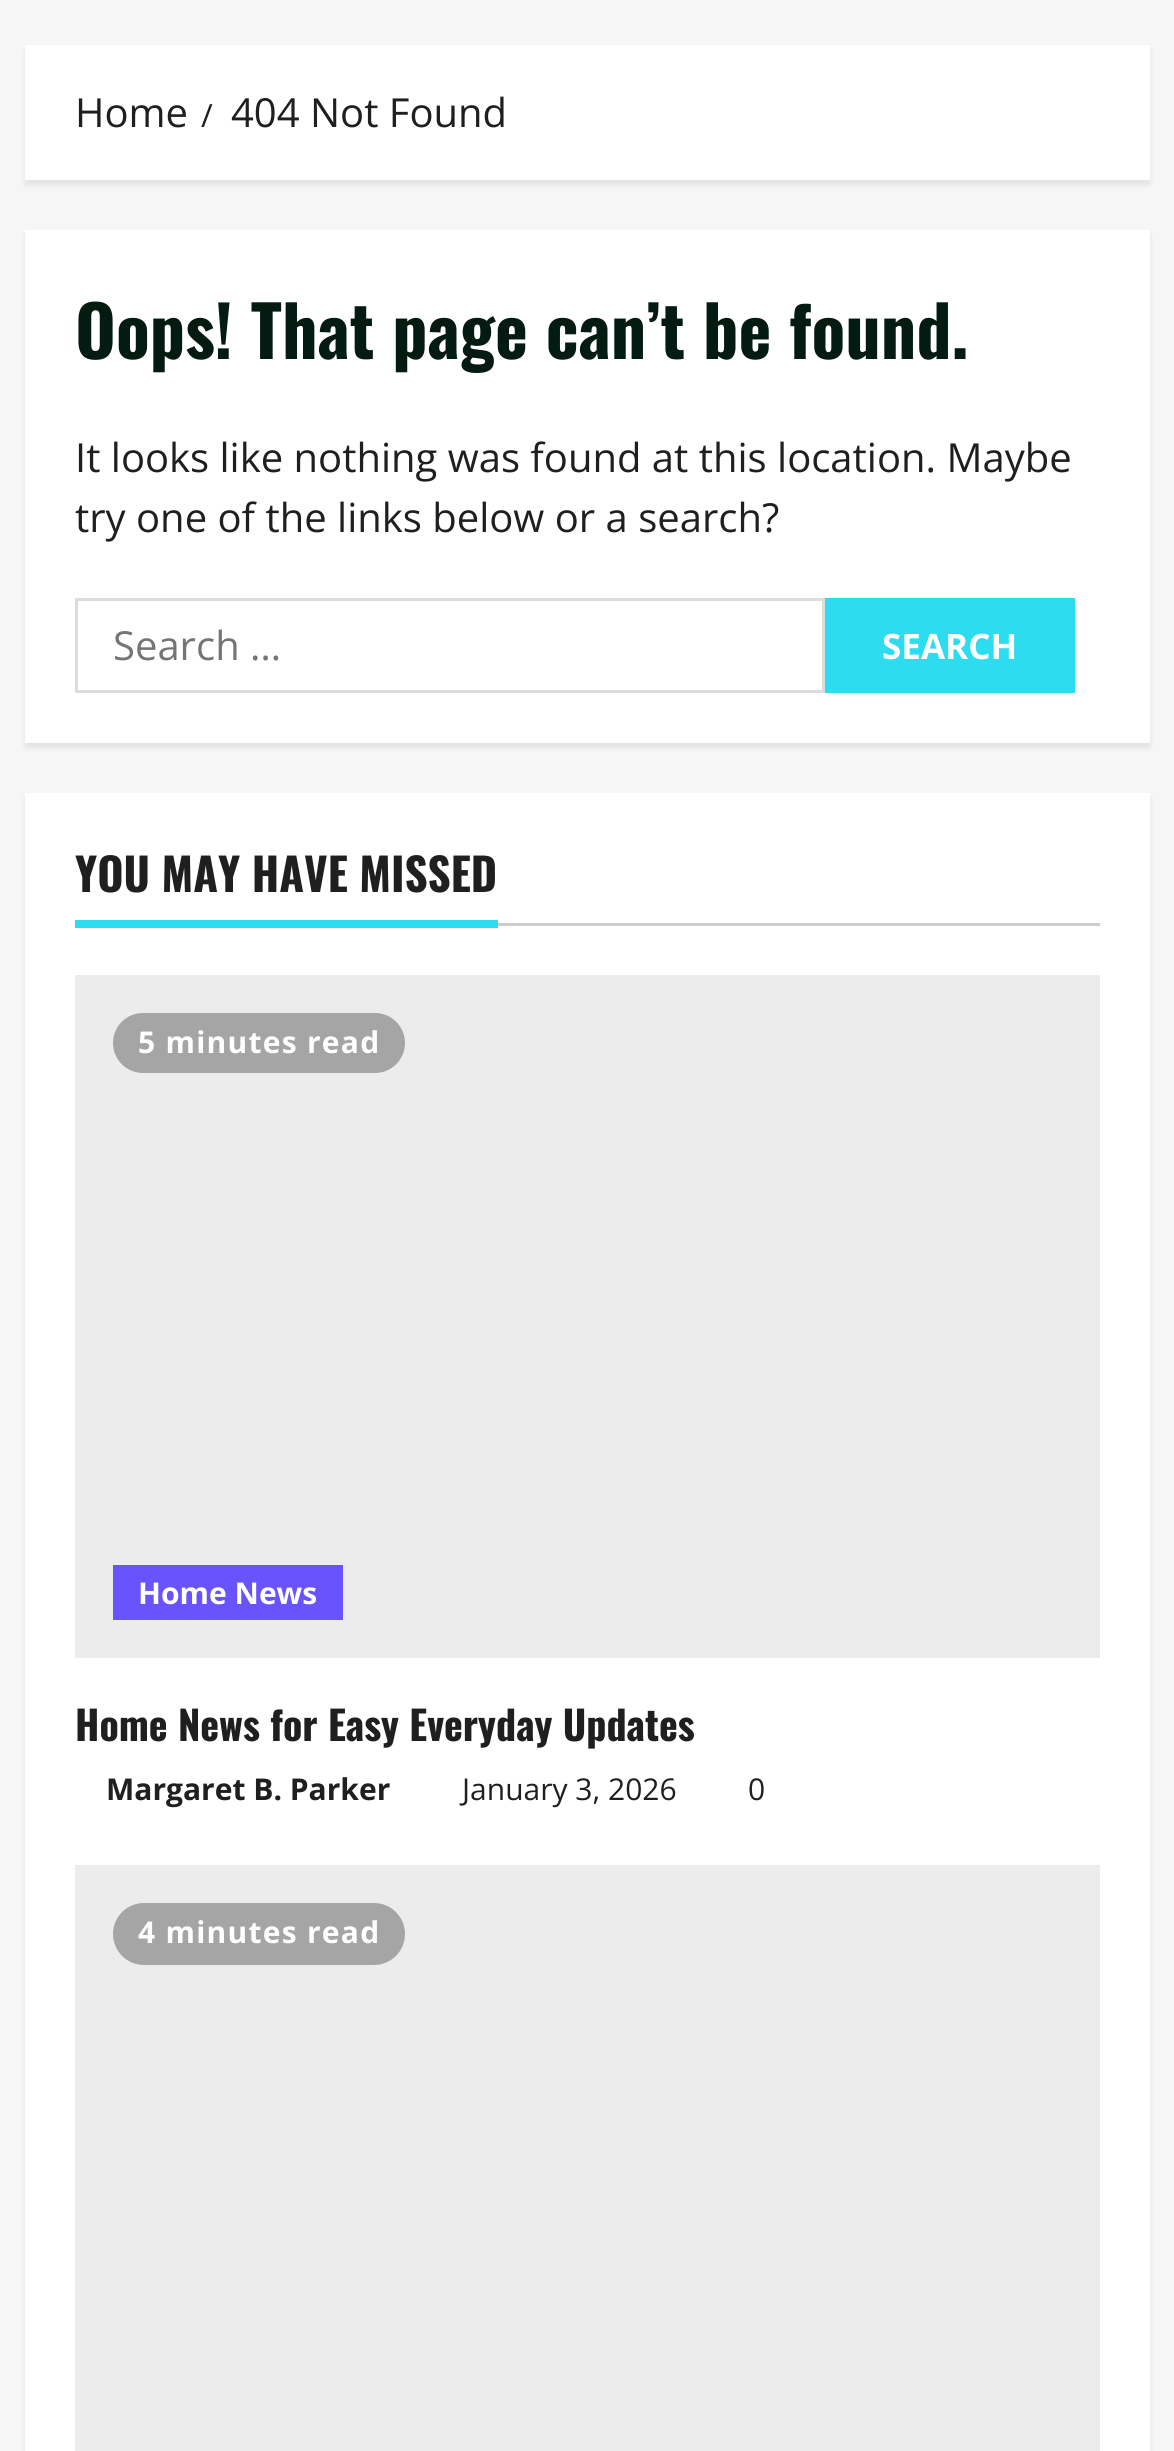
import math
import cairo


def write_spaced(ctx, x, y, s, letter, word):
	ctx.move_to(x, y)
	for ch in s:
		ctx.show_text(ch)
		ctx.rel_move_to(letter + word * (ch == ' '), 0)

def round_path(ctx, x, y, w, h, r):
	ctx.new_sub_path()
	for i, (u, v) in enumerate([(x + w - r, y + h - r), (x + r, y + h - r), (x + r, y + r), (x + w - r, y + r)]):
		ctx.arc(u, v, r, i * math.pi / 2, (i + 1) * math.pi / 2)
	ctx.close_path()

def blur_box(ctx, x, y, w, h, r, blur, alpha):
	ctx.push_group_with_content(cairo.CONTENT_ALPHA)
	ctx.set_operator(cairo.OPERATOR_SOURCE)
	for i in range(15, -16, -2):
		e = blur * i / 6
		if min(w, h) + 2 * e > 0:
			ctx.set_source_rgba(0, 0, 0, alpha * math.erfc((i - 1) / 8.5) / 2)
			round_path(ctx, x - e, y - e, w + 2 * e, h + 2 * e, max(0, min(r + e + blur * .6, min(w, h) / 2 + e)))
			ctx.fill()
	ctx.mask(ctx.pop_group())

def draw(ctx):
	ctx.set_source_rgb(0.961, 0.961, 0.961)
	ctx.paint()
	ctx.set_source_rgb(0, 0, 0)
	blur_box(ctx, 25, 50, 1125, 135, 0, 2.5, 0.08)
	ctx.set_source_rgb(1, 1, 1)
	ctx.rectangle(25, 45, 1125, 135)
	ctx.fill()
	ctx.select_font_face('Open Sans')
	ctx.set_font_size(40)
	ctx.set_source_rgb(0.122, 0.122, 0.122)
	ctx.move_to(75, 127)
	ctx.show_text('Home')
	ctx.set_font_size(32)
	ctx.move_to(201, 127)
	ctx.show_text('/')
	ctx.set_font_size(40)
	ctx.move_to(231, 127)
	ctx.show_text('404 Not Found')
	ctx.set_source_rgb(0, 0, 0)
	blur_box(ctx, 25, 235, 1125, 513, 0, 2.5, 0.08)
	ctx.set_source_rgb(1, 1, 1)
	ctx.rectangle(25, 230, 1125, 513)
	ctx.fill()
	ctx.select_font_face('Oswald', cairo.FONT_SLANT_NORMAL, cairo.FONT_WEIGHT_BOLD)
	ctx.set_font_size(70)
	ctx.set_source_rgb(0.012, 0.106, 0.067)
	ctx.move_to(75, 359)
	ctx.show_text('Oops! That page can’t be found.')
	ctx.select_font_face('Open Sans')
	ctx.set_font_size(40)
	ctx.set_source_rgb(0.122, 0.122, 0.122)
	ctx.move_to(75, 472)
	ctx.show_text('It looks like nothing was found at this location. Maybe')
	ctx.move_to(75, 532)
	ctx.show_text('try one of the links below or a search?')
	ctx.rectangle(76.5, 599.5, 747, 92)
	ctx.set_source_rgb(0.863, 0.863, 0.863)
	ctx.set_line_width(3)
	ctx.stroke()
	ctx.set_source_rgb(0.459, 0.459, 0.459)
	ctx.move_to(113, 660)
	ctx.show_text('Search …')
	ctx.set_source_rgb(0.176, 0.863, 0.937)
	ctx.rectangle(825, 598, 250, 95)
	ctx.fill()
	ctx.select_font_face('Open Sans', cairo.FONT_SLANT_NORMAL, cairo.FONT_WEIGHT_BOLD)
	ctx.set_font_size(35)
	ctx.set_source_rgb(1, 1, 1)
	ctx.move_to(882, 659)
	ctx.show_text('SEARCH')
	ctx.set_source_rgb(0, 0, 0)
	blur_box(ctx, 25, 798, 1125, 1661, 0, 2.5, 0.08)
	ctx.set_source_rgb(1, 1, 1)
	ctx.rectangle(25, 793, 1125, 1658)
	ctx.fill()
	ctx.set_source_rgb(0.8, 0.8, 0.8)
	ctx.rectangle(498, 923, 602, 3)
	ctx.fill()
	ctx.select_font_face('Oswald', cairo.FONT_SLANT_NORMAL, cairo.FONT_WEIGHT_BOLD)
	ctx.set_font_size(45)
	ctx.set_source_rgb(0.122, 0.122, 0.122)
	ctx.move_to(75, 892)
	ctx.show_text('YOU MAY HAVE MISSED')
	ctx.set_source_rgb(0.176, 0.863, 0.937)
	ctx.rectangle(75, 920, 423, 8)
	ctx.fill()
	ctx.set_source_rgb(0.925, 0.925, 0.925)
	ctx.rectangle(75, 975, 1025, 683)
	ctx.fill()
	ctx.set_source_rgb(0.647, 0.647, 0.647)
	round_path(ctx, 113, 1013, 292, 60, 30)
	ctx.fill()
	ctx.select_font_face('Open Sans', cairo.FONT_SLANT_NORMAL, cairo.FONT_WEIGHT_BOLD)
	ctx.set_font_size(30)
	ctx.set_source_rgb(1, 1, 1)
	write_spaced(ctx, 138, 1053, '5 minutes read', 1.25, 0)
	ctx.set_source_rgb(0.412, 0.325, 1)
	ctx.rectangle(113, 1565, 230, 55)
	ctx.fill()
	ctx.set_source_rgb(1, 1, 1)
	ctx.move_to(138, 1604)
	ctx.show_text('Home News')
	ctx.select_font_face('Oswald', cairo.FONT_SLANT_NORMAL, cairo.FONT_WEIGHT_BOLD)
	ctx.set_font_size(40)
	ctx.set_source_rgb(0.122, 0.122, 0.122)
	ctx.move_to(75, 1741)
	ctx.show_text('Home News for Easy Everyday Updates')
	ctx.select_font_face('Open Sans', cairo.FONT_SLANT_NORMAL, cairo.FONT_WEIGHT_BOLD)
	ctx.set_font_size(30)
	ctx.move_to(106, 1800)
	ctx.show_text('Margaret B. Parker')
	ctx.select_font_face('Open Sans')
	ctx.move_to(462, 1800)
	ctx.show_text('January 3, 2026')
	ctx.move_to(748, 1800)
	ctx.show_text('0')
	ctx.set_source_rgb(0.925, 0.925, 0.925)
	ctx.rectangle(75, 1865, 1025, 586)
	ctx.fill()
	ctx.set_source_rgb(0.647, 0.647, 0.647)
	round_path(ctx, 113, 1903, 292, 62, 31)
	ctx.fill()
	ctx.select_font_face('Open Sans', cairo.FONT_SLANT_NORMAL, cairo.FONT_WEIGHT_BOLD)
	ctx.set_source_rgb(1, 1, 1)
	write_spaced(ctx, 138, 1943, '4 minutes read', 1.25, 0)


surface = cairo.ImageSurface(cairo.FORMAT_RGB24, 1174, 2451)
ctx = cairo.Context(surface)
options = cairo.FontOptions()
options.set_hint_metrics(cairo.HINT_METRICS_OFF)
options.set_hint_style(cairo.HINT_STYLE_NONE)
ctx.set_font_options(options)
ctx.set_miter_limit(4)
draw(ctx)
surface.write_to_png('image.png')
